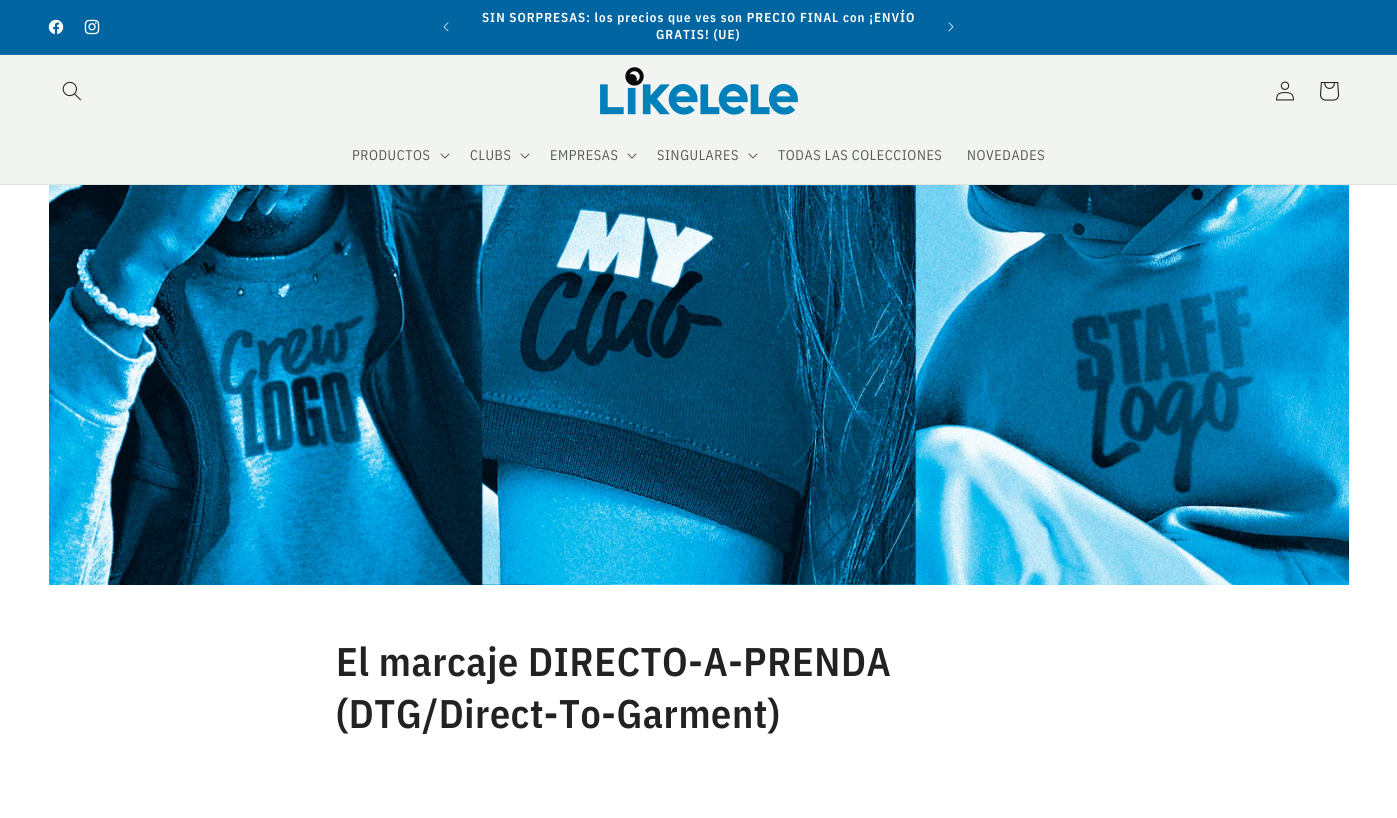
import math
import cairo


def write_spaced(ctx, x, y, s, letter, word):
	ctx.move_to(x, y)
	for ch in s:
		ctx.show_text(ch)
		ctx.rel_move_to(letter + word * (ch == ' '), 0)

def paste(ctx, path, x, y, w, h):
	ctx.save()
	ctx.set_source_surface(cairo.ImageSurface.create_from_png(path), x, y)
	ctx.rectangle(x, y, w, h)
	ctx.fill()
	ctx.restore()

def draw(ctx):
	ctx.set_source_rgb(1, 1, 1)
	ctx.paint()
	ctx.set_source_rgb(0, 0.396, 0.631)
	ctx.rectangle(0, 0, 1397, 54)
	ctx.fill()
	ctx.set_source_rgb(0.078, 0.443, 0.663)
	ctx.rectangle(0, 54, 1397, 1)
	ctx.fill()
	paste(ctx, 'media/1.png', 48, 19, 16, 16)
	paste(ctx, 'media/2.png', 84, 19, 16, 16)
	paste(ctx, 'media/3.png', 443, 22, 6, 10)
	ctx.select_font_face('IBM Plex Sans Condensed SemiBold')
	ctx.set_font_size(13)
	ctx.set_source_rgb(1, 1, 1)
	write_spaced(ctx, 482, 22, 'SIN SORPRESAS: los precios que ves son PRECIO FINAL con ¡ENVÍO', 1, 0)
	write_spaced(ctx, 656, 39, 'GRATIS! (UE)', 1, 0)
	paste(ctx, 'media/4.png', 948, 22, 6, 10)
	ctx.set_source_rgb(0.949, 0.957, 0.945)
	ctx.rectangle(0, 55, 1397, 129)
	ctx.fill()
	ctx.set_source_rgb(0.882, 0.89, 0.878)
	ctx.rectangle(0, 184, 1397, 1)
	ctx.fill()
	paste(ctx, 'media/5.png', 62, 81, 19, 20)
	paste(ctx, 'media/6.png', 600, 67, 198, 48)
	paste(ctx, 'media/7.png', 1276, 81, 18, 20)
	paste(ctx, 'media/8.png', 1320, 82, 20, 19)
	ctx.select_font_face('IBM Plex Sans Condensed')
	ctx.set_font_size(14)
	ctx.set_source_rgb(0.337, 0.341, 0.337)
	write_spaced(ctx, 352, 160, 'PRODUCTOS', 0.6, 0)
	paste(ctx, 'media/9.png', 440, 153, 10, 6)
	write_spaced(ctx, 470, 160, 'CLUBS', 0.6, 0)
	paste(ctx, 'media/9.png', 520, 153, 10, 6)
	write_spaced(ctx, 550, 160, 'EMPRESAS', 0.6, 0)
	paste(ctx, 'media/9.png', 627, 153, 10, 6)
	write_spaced(ctx, 657, 160, 'SINGULARES', 0.6, 0)
	paste(ctx, 'media/9.png', 748, 153, 10, 6)
	write_spaced(ctx, 778, 160, 'TODAS LAS COLECCIONES', 0.6, 0)
	write_spaced(ctx, 967, 160, 'NOVEDADES', 0.6, 0)
	paste(ctx, 'media/10.png', 49, 185, 1300, 400)
	ctx.select_font_face('IBM Plex Sans Condensed SemiBold')
	ctx.set_font_size(40)
	ctx.set_source_rgb(0.133, 0.133, 0.133)
	write_spaced(ctx, 336, 676, 'El marcaje DIRECTO-A-PRENDA', 0.6, 0)
	write_spaced(ctx, 336, 728, '(DTG/Direct-To-Garment)', 0.6, 0)


surface = cairo.ImageSurface(cairo.FORMAT_RGB24, 1397, 818)
ctx = cairo.Context(surface)
options = cairo.FontOptions()
options.set_hint_metrics(cairo.HINT_METRICS_OFF)
options.set_hint_style(cairo.HINT_STYLE_NONE)
ctx.set_font_options(options)
ctx.set_miter_limit(4)
draw(ctx)
surface.write_to_png('image.png')
